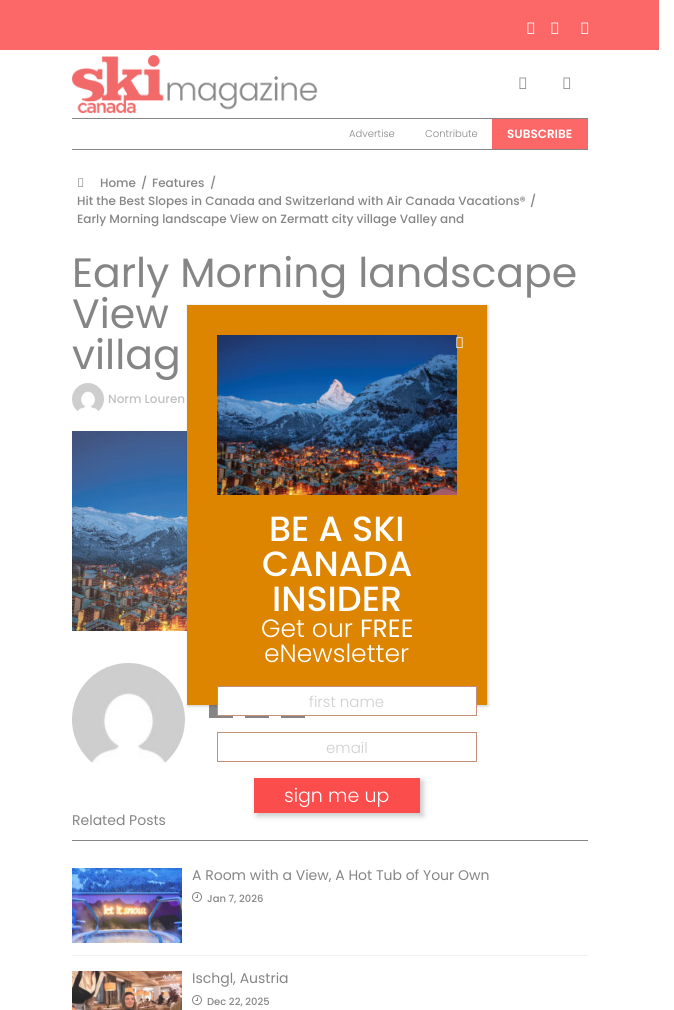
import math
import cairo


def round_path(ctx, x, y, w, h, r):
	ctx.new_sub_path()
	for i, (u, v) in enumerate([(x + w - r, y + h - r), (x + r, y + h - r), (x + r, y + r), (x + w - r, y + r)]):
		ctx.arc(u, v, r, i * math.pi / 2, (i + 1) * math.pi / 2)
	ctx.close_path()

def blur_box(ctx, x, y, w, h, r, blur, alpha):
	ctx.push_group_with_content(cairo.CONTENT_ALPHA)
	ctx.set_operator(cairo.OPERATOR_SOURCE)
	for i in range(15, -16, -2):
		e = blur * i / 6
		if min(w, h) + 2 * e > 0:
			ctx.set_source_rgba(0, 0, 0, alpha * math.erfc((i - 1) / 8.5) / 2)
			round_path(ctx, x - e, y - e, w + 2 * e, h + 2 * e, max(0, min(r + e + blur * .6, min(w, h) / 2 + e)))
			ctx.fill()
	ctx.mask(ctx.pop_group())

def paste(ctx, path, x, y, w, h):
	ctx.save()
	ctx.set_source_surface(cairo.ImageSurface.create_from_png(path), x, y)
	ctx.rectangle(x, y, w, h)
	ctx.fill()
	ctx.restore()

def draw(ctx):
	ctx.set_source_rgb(1, 1, 1)
	ctx.paint()
	ctx.set_source_rgb(0.988, 0.408, 0.408)
	ctx.rectangle(0, 0, 659, 50)
	ctx.fill()
	paste(ctx, 'media/1.png', 527, 22, 8, 12)
	paste(ctx, 'media/1.png', 551, 22, 8, 12)
	paste(ctx, 'media/1.png', 581, 22, 8, 12)
	paste(ctx, 'media/2.png', 72, 55, 246, 58)
	paste(ctx, 'media/3.png', 519, 77, 8, 12)
	paste(ctx, 'media/3.png', 563, 77, 8, 12)
	ctx.set_source_rgb(0.522, 0.522, 0.522)
	ctx.rectangle(72, 118, 516, 1)
	ctx.fill()
	ctx.rectangle(72, 149, 516, 1)
	ctx.fill()
	ctx.select_font_face('Poppins Light')
	ctx.set_font_size(10)
	ctx.move_to(349, 137)
	ctx.show_text('Advertise')
	ctx.move_to(425, 137)
	ctx.show_text('Contribute')
	ctx.set_source_rgb(0.988, 0.408, 0.408)
	ctx.rectangle(492, 119, 96, 30)
	ctx.fill()
	ctx.select_font_face('Poppins SemiBold')
	ctx.set_font_size(12)
	ctx.set_source_rgb(1, 1, 1)
	ctx.move_to(507, 138)
	ctx.show_text('SUBSCRIBE')
	paste(ctx, 'media/4.png', 78, 178, 6, 9)
	ctx.select_font_face('Poppins Medium')
	ctx.set_source_rgb(0.522, 0.522, 0.522)
	for x, y, s in [
		(100, 187, 'Home'),
		(141, 187, '/'),
		(152, 187, 'Features'),
		(210, 187, '/'),
		(77, 205, 'Hit the Best Slopes in Canada and Switzerland with Air Canada Vacations®'),
		(530, 205, '/'),
		(77, 223, 'Early Morning landscape View on Zermatt city village Valley and'),
	]:
		ctx.move_to(x, y)
		ctx.show_text(s)
	ctx.select_font_face('Poppins')
	ctx.set_font_size(41)
	for x, y, s in [
		(72, 287, 'Early Morning landscape'),
		(72, 328, 'View'),
		(72, 369, 'villag'),
	]:
		ctx.move_to(x, y)
		ctx.show_text(s)
	paste(ctx, 'media/5.png', 72, 383, 32, 28)
	ctx.select_font_face('Poppins Medium')
	ctx.set_font_size(12)
	ctx.set_source_rgb(0.753, 0.753, 0.753)
	ctx.move_to(108, 403)
	ctx.show_text('Norm Louren')
	paste(ctx, 'media/6.png', 72, 431, 115, 200)
	paste(ctx, 'media/7.png', 72, 663, 113, 100)
	ctx.set_source_rgb(0.522, 0.522, 0.522)
	ctx.rectangle(209, 705, 24, 13)
	ctx.rectangle(245, 716, 24, 2)
	ctx.rectangle(281, 716, 24, 2)
	ctx.rectangle(72, 840, 516, 1)
	ctx.fill()
	ctx.select_font_face('Poppins')
	ctx.set_font_size(14)
	ctx.move_to(72, 825)
	ctx.show_text('Related Posts')
	ctx.set_source_rgb(0.945, 0.945, 0.945)
	ctx.rectangle(72, 955, 516, 1)
	ctx.fill()
	paste(ctx, 'media/8.png', 72, 868, 110, 75)
	ctx.set_source_rgb(0.522, 0.522, 0.522)
	ctx.move_to(192, 880)
	ctx.show_text('A Room with a View, A Hot Tub of Your Own')
	paste(ctx, 'media/9.png', 192, 892, 10, 10)
	ctx.select_font_face('Poppins Medium')
	ctx.set_font_size(10)
	ctx.move_to(207, 902)
	ctx.show_text('Jan 7, 2026')
	paste(ctx, 'media/10.png', 72, 971, 110, 39)
	ctx.select_font_face('Poppins')
	ctx.set_font_size(14)
	ctx.move_to(192, 983)
	ctx.show_text('Ischgl, Austria')
	paste(ctx, 'media/9.png', 192, 995, 10, 10)
	ctx.select_font_face('Poppins Medium')
	ctx.set_font_size(10)
	ctx.move_to(207, 1005)
	ctx.show_text('Dec 22, 2025')
	ctx.set_source_rgb(0.008, 0.008, 0.008)
	blur_box(ctx, 188, 306, 300, 400, 0, 1.5, 0.23)
	ctx.set_source_rgb(0.867, 0.522, 0)
	ctx.rectangle(187, 305, 300, 400)
	ctx.fill()
	paste(ctx, 'media/12.png', 217, 335, 240, 160)
	paste(ctx, 'media/11.png', 456, 337, 7, 11)
	ctx.set_font_size(35)
	ctx.set_source_rgb(1, 1, 1)
	for x, y, s in [
		(269, 541, 'BE A SKI'),
		(262, 576, 'CANADA'),
		(272, 611, 'INSIDER'),
	]:
		ctx.move_to(x, y)
		ctx.show_text(s)
	ctx.select_font_face('Poppins Light')
	ctx.set_font_size(25)
	ctx.move_to(261, 637)
	ctx.show_text('Get our')
	ctx.select_font_face('Poppins')
	ctx.move_to(360, 637)
	ctx.show_text('FREE')
	ctx.select_font_face('Poppins Light')
	ctx.move_to(264, 662)
	ctx.show_text('eNewsletter')
	ctx.rectangle(217.5, 686.5, 259, 29)
	ctx.fill_preserve()
	ctx.set_source_rgb(0.757, 0.561, 0.478)
	ctx.set_line_width(1)
	ctx.stroke()
	ctx.set_font_size(15)
	ctx.set_source_rgb(0.808, 0.808, 0.808)
	ctx.move_to(309, 707)
	ctx.show_text('first name')
	ctx.rectangle(217.5, 732.5, 259, 29)
	ctx.set_source_rgb(0.757, 0.561, 0.478)
	ctx.stroke()
	ctx.set_source_rgb(0.808, 0.808, 0.808)
	ctx.move_to(326, 753)
	ctx.show_text('email')
	ctx.set_source_rgb(0.09, 0.09, 0.09)
	blur_box(ctx, 257, 781, 166, 35, 0, 3, 0.25)
	ctx.set_source_rgb(0.988, 0.302, 0.302)
	ctx.rectangle(254, 778, 166, 35)
	ctx.fill()
	ctx.set_font_size(19)
	ctx.set_source_rgb(1, 1, 1)
	ctx.move_to(284, 802)
	ctx.show_text('sign me up')


surface = cairo.ImageSurface(cairo.FORMAT_RGB24, 674, 1010)
ctx = cairo.Context(surface)
options = cairo.FontOptions()
options.set_hint_metrics(cairo.HINT_METRICS_OFF)
options.set_hint_style(cairo.HINT_STYLE_NONE)
ctx.set_font_options(options)
ctx.set_miter_limit(4)
draw(ctx)
surface.write_to_png('image.png')
